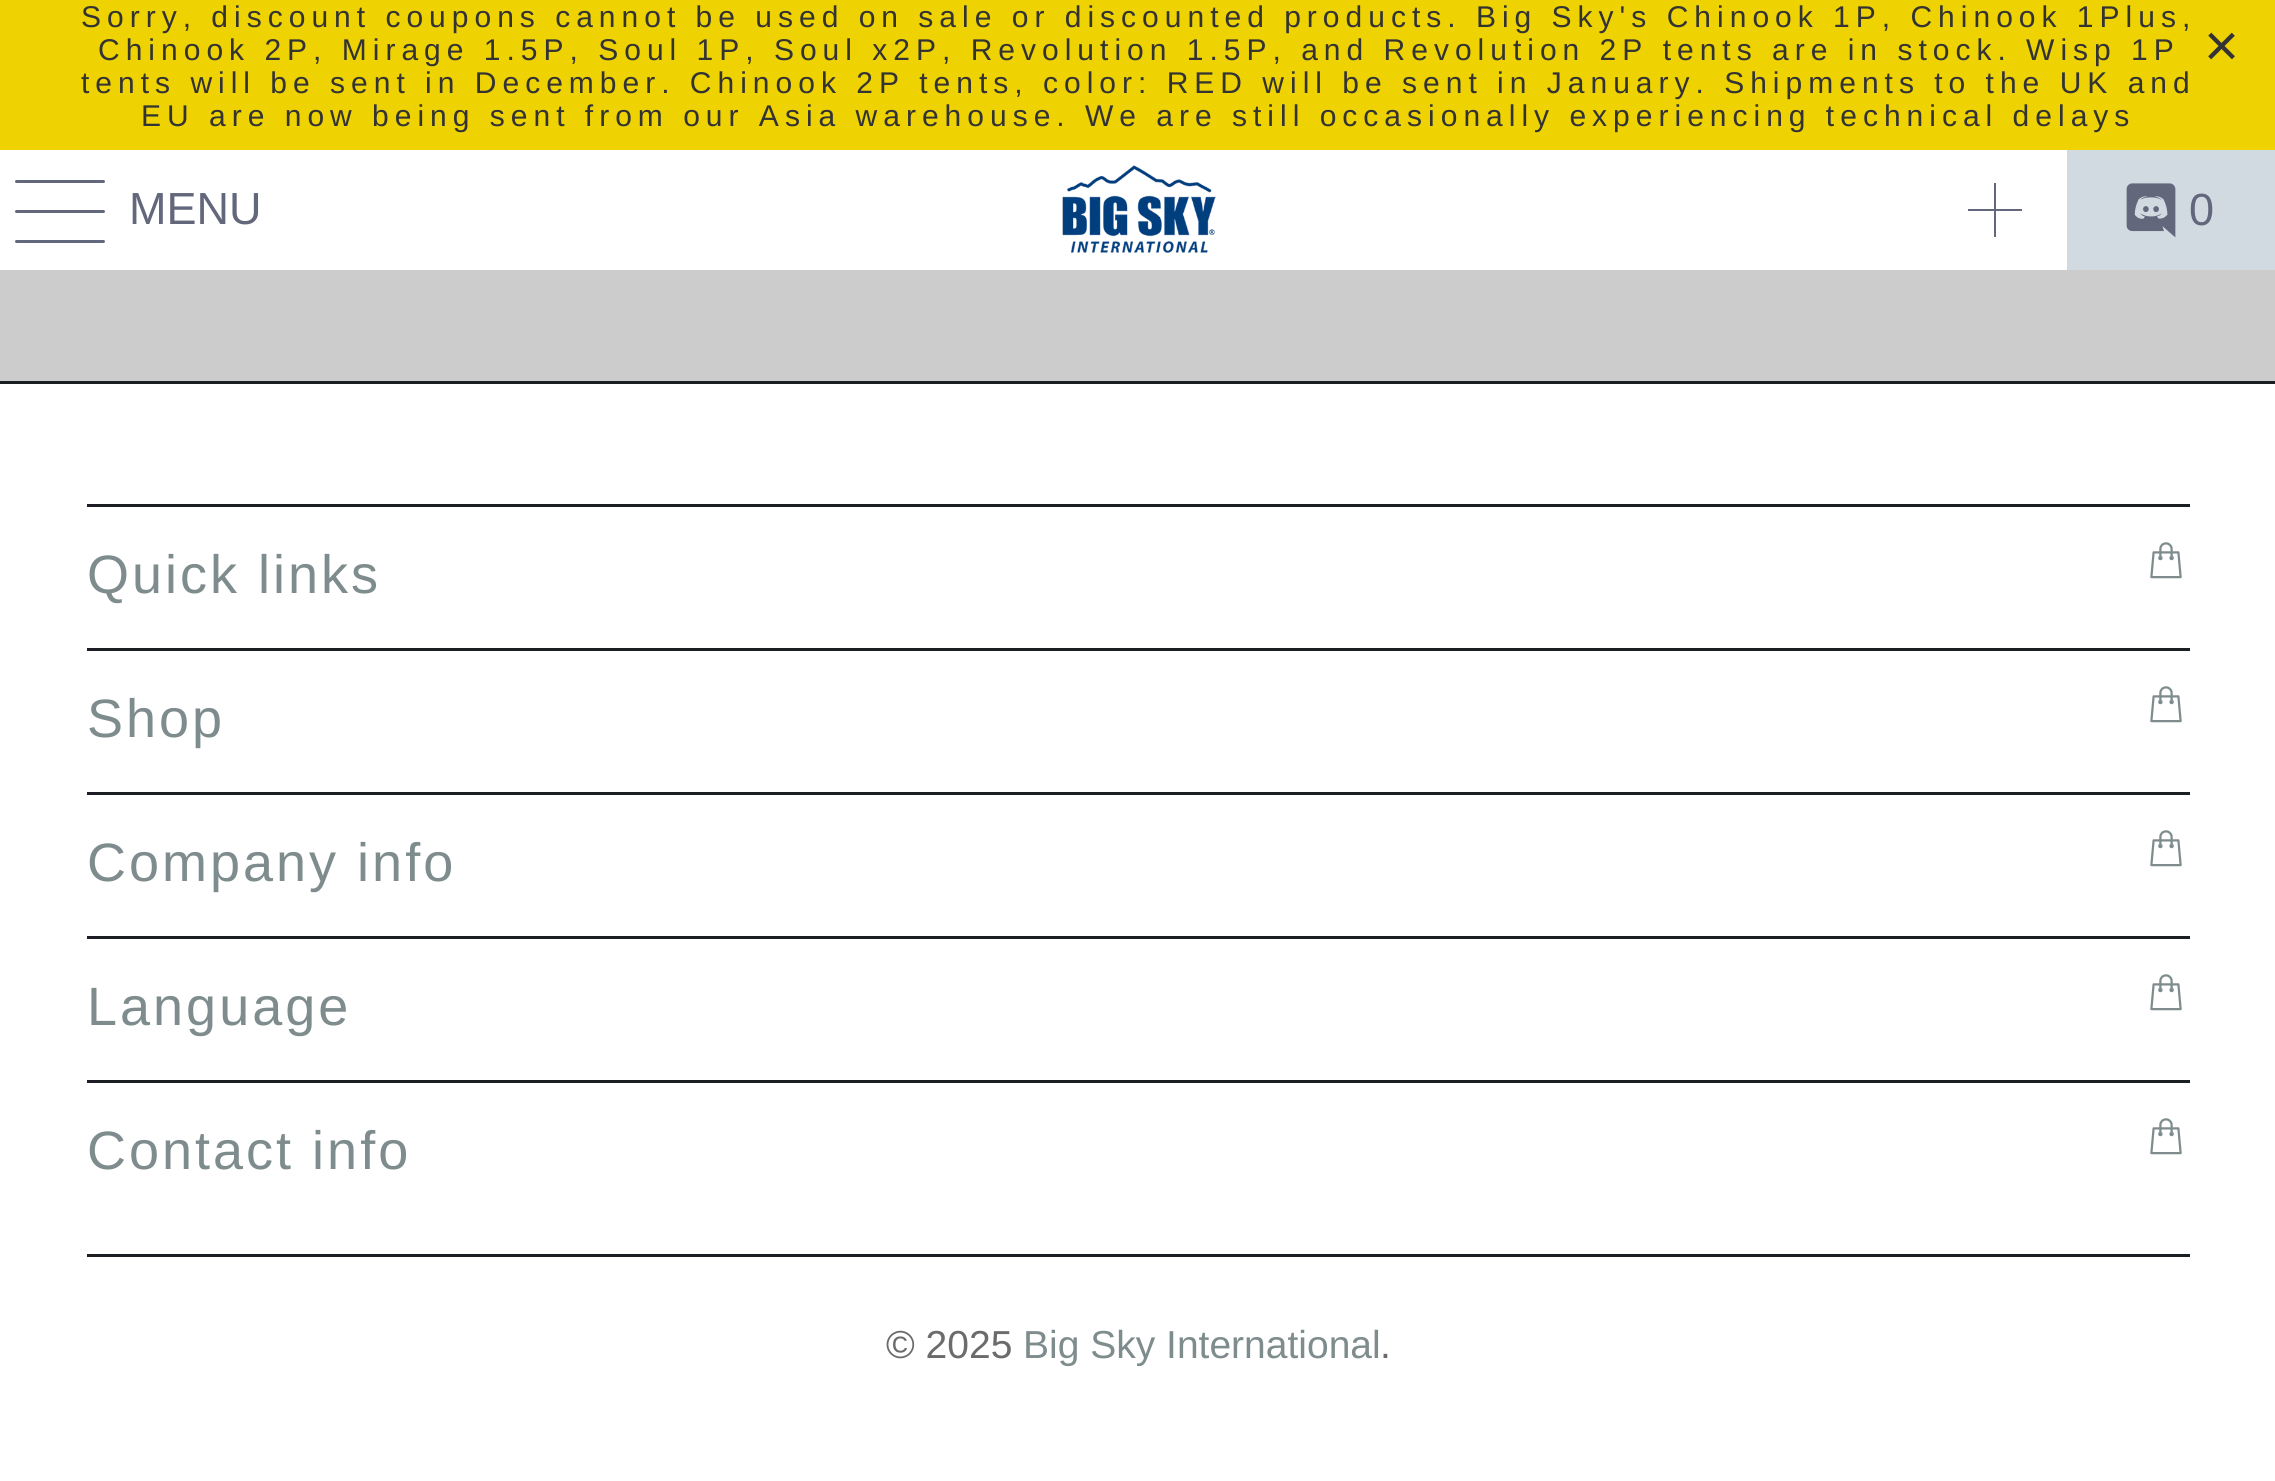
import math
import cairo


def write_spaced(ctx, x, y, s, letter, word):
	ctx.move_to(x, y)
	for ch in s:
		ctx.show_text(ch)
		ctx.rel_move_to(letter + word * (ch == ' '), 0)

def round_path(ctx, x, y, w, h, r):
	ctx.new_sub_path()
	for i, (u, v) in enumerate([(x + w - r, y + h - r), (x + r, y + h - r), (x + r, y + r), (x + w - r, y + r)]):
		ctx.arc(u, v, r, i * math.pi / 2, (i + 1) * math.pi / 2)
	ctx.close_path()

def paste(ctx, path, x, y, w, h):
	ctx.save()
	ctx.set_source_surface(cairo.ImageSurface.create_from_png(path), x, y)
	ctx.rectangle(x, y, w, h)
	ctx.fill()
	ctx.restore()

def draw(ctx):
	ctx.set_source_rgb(1, 1, 1)
	ctx.paint()
	ctx.set_source_rgb(0.933, 0.824, 0.008)
	ctx.rectangle(0, 0, 2275, 150)
	ctx.fill()
	ctx.select_font_face('Arimo')
	ctx.set_font_size(30)
	ctx.set_source_rgb(0.2, 0.2, 0.2)
	for x, y, s in [
		(81, 27, 'Sorry, discount coupons cannot be used on sale or discounted products. Big Sky\'s Chinook 1P, Chinook 1Plus,'),
		(98, 60, 'Chinook 2P, Mirage 1.5P, Soul 1P, Soul x2P, Revolution 1.5P, and Revolution 2P tents are in stock. Wisp 1P'),
		(81, 93, 'tents will be sent in December. Chinook 2P tents, color: RED will be sent in January. Shipments to the UK and'),
		(141, 126, 'EU are now being sent from our Asia warehouse. We are still occasionally experiencing technical delays'),
	]:
		write_spaced(ctx, x, y, s, 6, 0)
	ctx.select_font_face('Liberation Sans')
	ctx.set_font_size(60)
	write_spaced(ctx, 2204, 66, '×', 6, 0)
	ctx.set_source_rgb(0.384, 0.404, 0.482)
	round_path(ctx, 15, 180, 90, 3, 1.5)
	ctx.fill()
	round_path(ctx, 15, 210, 90, 3, 1.5)
	ctx.fill()
	round_path(ctx, 15, 240, 90, 3, 1.5)
	ctx.fill()
	ctx.select_font_face('Arimo')
	ctx.set_font_size(45)
	ctx.move_to(129, 224)
	ctx.show_text('MENU')
	paste(ctx, 'media/1.png', 1062, 165, 154, 88)
	ctx.new_path()
	ctx.move_to(2022, 209)
	ctx.line_to(1996, 209)
	ctx.line_to(1996, 183)
	ctx.line_to(1994, 183)
	ctx.line_to(1994, 209)
	ctx.line_to(1968, 209)
	ctx.line_to(1968, 211)
	ctx.line_to(1994, 211)
	ctx.line_to(1994, 237)
	ctx.line_to(1996, 237)
	ctx.line_to(1996, 211)
	ctx.line_to(2022, 211)
	ctx.close_path()
	ctx.fill()
	ctx.set_source_rgb(0.82, 0.851, 0.882)
	ctx.rectangle(2067, 150, 208, 120)
	ctx.fill()
	paste(ctx, 'media/2.png', 2126, 183, 50, 55)
	ctx.set_source_rgb(0.384, 0.404, 0.482)
	ctx.move_to(2189, 225)
	ctx.show_text('0')
	ctx.set_source_rgb(0.8, 0.8, 0.8)
	ctx.rectangle(0, 270, 2275, 111)
	ctx.fill()
	ctx.set_source_rgb(0.106, 0.122, 0.137)
	ctx.rectangle(0, 381, 2275, 3)
	ctx.rectangle(87, 504, 2103, 3)
	ctx.fill()
	ctx.set_font_size(54)
	ctx.set_source_rgb(0.498, 0.549, 0.553)
	write_spaced(ctx, 87, 593, 'Quick links', 3, 0)
	paste(ctx, 'media/3.png', 2150, 542, 32, 37)
	ctx.set_source_rgb(0.106, 0.122, 0.137)
	ctx.rectangle(87, 648, 2103, 3)
	ctx.fill()
	ctx.set_source_rgb(0.498, 0.549, 0.553)
	write_spaced(ctx, 87, 737, 'Shop', 3, 0)
	paste(ctx, 'media/3.png', 2150, 686, 32, 37)
	ctx.set_source_rgb(0.106, 0.122, 0.137)
	ctx.rectangle(87, 792, 2103, 3)
	ctx.fill()
	ctx.set_source_rgb(0.498, 0.549, 0.553)
	write_spaced(ctx, 87, 881, 'Company info', 3, 0)
	paste(ctx, 'media/3.png', 2150, 830, 32, 37)
	ctx.set_source_rgb(0.106, 0.122, 0.137)
	ctx.rectangle(87, 936, 2103, 3)
	ctx.fill()
	ctx.set_source_rgb(0.498, 0.549, 0.553)
	write_spaced(ctx, 87, 1025, 'Language', 3, 0)
	paste(ctx, 'media/3.png', 2150, 974, 32, 37)
	ctx.set_source_rgb(0.106, 0.122, 0.137)
	ctx.rectangle(87, 1080, 2103, 3)
	ctx.fill()
	ctx.set_source_rgb(0.498, 0.549, 0.553)
	write_spaced(ctx, 87, 1169, 'Contact info', 3, 0)
	paste(ctx, 'media/3.png', 2150, 1118, 32, 37)
	ctx.set_source_rgb(0.106, 0.122, 0.137)
	ctx.rectangle(87, 1254, 2103, 3)
	ctx.fill()
	ctx.set_font_size(39)
	ctx.set_source_rgb(0.42, 0.42, 0.42)
	ctx.move_to(886, 1358)
	ctx.show_text('© 2025')
	ctx.set_source_rgb(0.498, 0.549, 0.553)
	ctx.move_to(1023, 1358)
	ctx.show_text('Big Sky International')
	ctx.set_source_rgb(0.42, 0.42, 0.42)
	ctx.move_to(1380, 1358)
	ctx.show_text('.')


surface = cairo.ImageSurface(cairo.FORMAT_RGB24, 2275, 1481)
ctx = cairo.Context(surface)
options = cairo.FontOptions()
options.set_hint_metrics(cairo.HINT_METRICS_OFF)
options.set_hint_style(cairo.HINT_STYLE_NONE)
ctx.set_font_options(options)
ctx.set_miter_limit(4)
draw(ctx)
surface.write_to_png('image.png')
